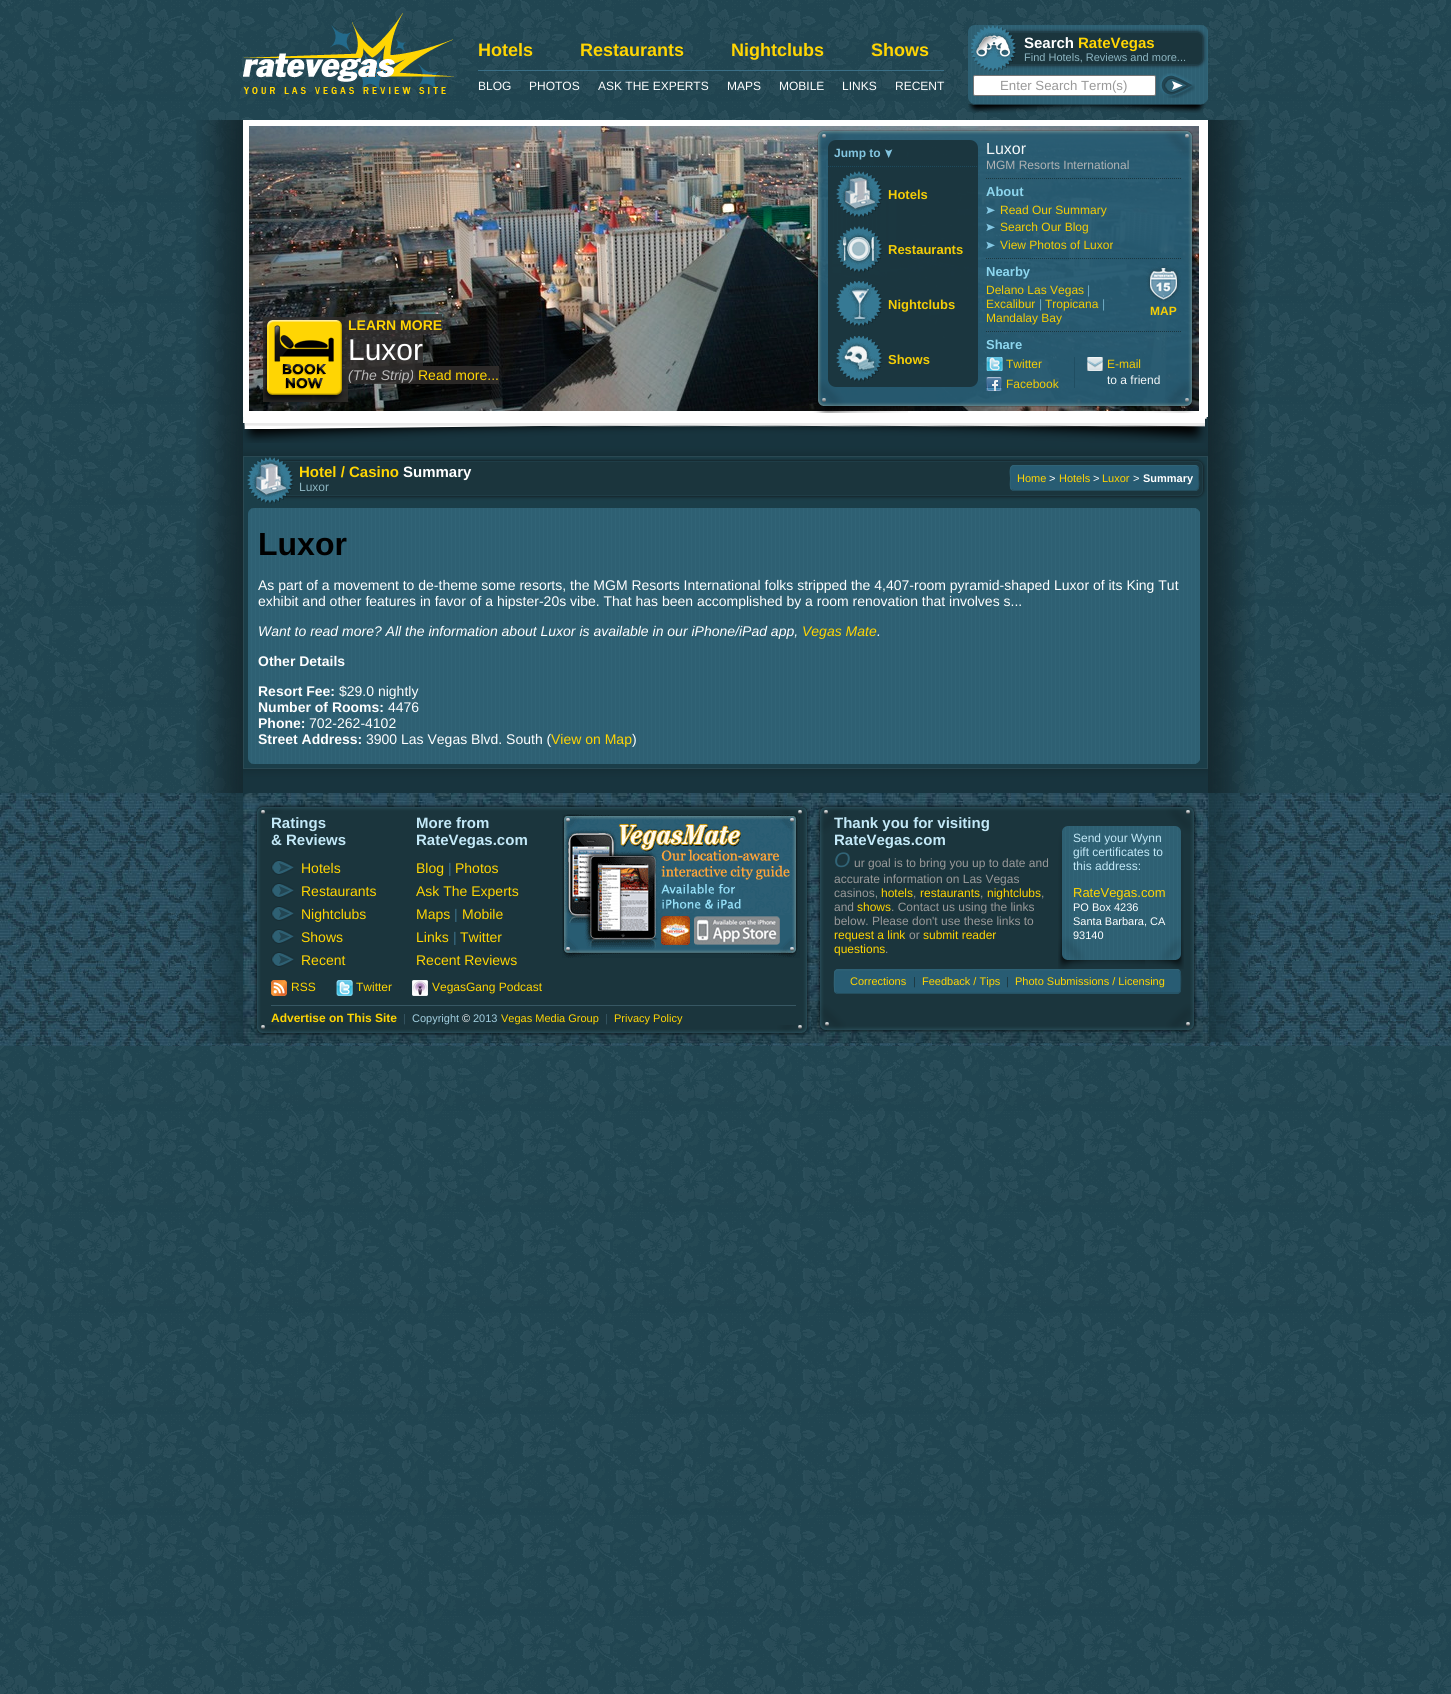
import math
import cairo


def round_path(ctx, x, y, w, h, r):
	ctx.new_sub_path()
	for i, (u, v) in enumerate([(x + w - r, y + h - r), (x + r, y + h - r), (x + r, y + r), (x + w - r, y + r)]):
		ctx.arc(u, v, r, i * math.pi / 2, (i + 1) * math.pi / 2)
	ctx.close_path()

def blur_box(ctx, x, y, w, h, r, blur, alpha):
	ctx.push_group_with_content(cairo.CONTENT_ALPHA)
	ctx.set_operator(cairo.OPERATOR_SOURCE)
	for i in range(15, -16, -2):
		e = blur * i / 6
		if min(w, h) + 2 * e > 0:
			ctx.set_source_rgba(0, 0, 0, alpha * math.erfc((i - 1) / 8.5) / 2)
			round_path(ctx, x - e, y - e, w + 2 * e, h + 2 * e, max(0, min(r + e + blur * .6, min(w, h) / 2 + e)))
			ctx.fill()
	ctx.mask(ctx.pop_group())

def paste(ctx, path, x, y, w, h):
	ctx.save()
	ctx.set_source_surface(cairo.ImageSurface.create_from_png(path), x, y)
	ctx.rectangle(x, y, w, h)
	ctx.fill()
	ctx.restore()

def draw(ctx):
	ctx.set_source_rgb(1, 1, 1)
	ctx.paint()
	paste(ctx, 'media/1.png', 0, 0, 1451, 1694)
	paste(ctx, 'media/2.png', 196, 120, 1059, 673)
	paste(ctx, 'media/3.png', 243, 13, 211, 81)
	ctx.select_font_face('Liberation Sans', cairo.FONT_SLANT_NORMAL, cairo.FONT_WEIGHT_BOLD)
	ctx.set_font_size(18)
	ctx.set_source_rgb(1, 0.835, 0.012)
	for x, y, s in [
		(478, 56, 'Hotels'),
		(580, 56, 'Restaurants'),
		(731, 56, 'Nightclubs'),
		(871, 56, 'Shows'),
	]:
		ctx.move_to(x, y)
		ctx.show_text(s)
	ctx.set_source_rgb(0.231, 0.439, 0.533)
	ctx.rectangle(478, 70, 466, 1)
	ctx.fill()
	ctx.select_font_face('Liberation Sans')
	ctx.set_font_size(12)
	ctx.set_source_rgb(1, 1, 1)
	for x, y, s in [
		(478, 90, 'BLOG'),
		(529, 90, 'PHOTOS'),
		(598, 90, 'ASK THE EXPERTS'),
		(727, 90, 'MAPS'),
		(779, 90, 'MOBILE'),
		(842, 90, 'LINKS'),
		(895, 90, 'RECENT'),
	]:
		ctx.move_to(x, y)
		ctx.show_text(s)
	ctx.set_source_rgb(0.18, 0.376, 0.451)
	round_path(ctx, 968, 25, 240, 79, 7)
	ctx.fill()
	paste(ctx, 'media/4.png', 971, 25, 237, 79)
	ctx.set_source_rgb(0.067, 0.067, 0.067)
	blur_box(ctx, 983, 32, 220, 33, 6, 2, 1)
	ctx.set_source_rgb(0.106, 0.208, 0.239)
	round_path(ctx, 983.5, 32.5, 219, 32, 5.5)
	ctx.fill_preserve()
	ctx.set_source_rgb(0.122, 0.239, 0.278)
	ctx.set_line_width(1)
	ctx.stroke()
	paste(ctx, 'media/5.png', 971, 25, 46, 46)
	ctx.select_font_face('Liberation Sans', cairo.FONT_SLANT_NORMAL, cairo.FONT_WEIGHT_BOLD)
	ctx.set_font_size(15)
	ctx.set_source_rgb(1, 1, 1)
	ctx.move_to(1024, 48)
	ctx.show_text('Search')
	ctx.set_source_rgb(1, 0.835, 0.012)
	ctx.move_to(1078, 48)
	ctx.show_text('RateVegas')
	ctx.select_font_face('Liberation Sans')
	ctx.set_font_size(11)
	ctx.set_source_rgb(0.553, 0.714, 0.761)
	ctx.move_to(1024, 61)
	ctx.show_text('Find Hotels, Reviews and more...')
	ctx.set_source_rgb(1, 1, 1)
	round_path(ctx, 973.5, 75.5, 182, 20, 1.5)
	ctx.fill_preserve()
	ctx.set_source_rgb(0.463, 0.463, 0.463)
	ctx.stroke()
	ctx.set_font_size(13.25)
	ctx.set_source_rgb(0.6, 0.6, 0.6)
	ctx.move_to(1000, 90)
	ctx.show_text('Enter Search Term(s)')
	paste(ctx, 'media/6.png', 1160, 73, 35, 25)
	paste(ctx, 'media/7.png', 968, 104, 238, 9)
	ctx.set_source_rgb(1, 1, 1)
	ctx.rectangle(243, 120, 965, 297)
	ctx.fill()
	paste(ctx, 'media/8.png', 249, 126, 950, 285)
	paste(ctx, 'media/9.png', 263, 317, 85, 85)
	ctx.set_source_rgba(0.196, 0.184, 0.176, 0.8)
	ctx.rectangle(348, 314, 94, 20)
	ctx.fill()
	ctx.select_font_face('Liberation Sans', cairo.FONT_SLANT_NORMAL, cairo.FONT_WEIGHT_BOLD)
	ctx.set_font_size(14)
	ctx.set_source_rgb(1, 0.835, 0.012)
	ctx.move_to(348, 330)
	ctx.show_text('LEARN MORE')
	ctx.set_source_rgba(0.196, 0.184, 0.176, 0.8)
	ctx.rectangle(348, 333, 75, 33)
	ctx.fill()
	ctx.select_font_face('Liberation Sans')
	ctx.set_font_size(30)
	ctx.set_source_rgb(1, 1, 1)
	ctx.move_to(348, 360)
	ctx.show_text('Luxor')
	ctx.set_source_rgba(0.196, 0.184, 0.176, 0.8)
	ctx.rectangle(348, 366, 151, 18)
	ctx.fill()
	ctx.select_font_face('Liberation Sans', cairo.FONT_SLANT_ITALIC)
	ctx.set_font_size(14)
	ctx.set_source_rgb(0.725, 0.725, 0.725)
	ctx.move_to(348, 380)
	ctx.show_text('(The Strip)')
	ctx.select_font_face('Liberation Sans')
	ctx.set_source_rgb(1, 0.835, 0.012)
	ctx.move_to(418, 380)
	ctx.show_text('Read more...')
	paste(ctx, 'media/10.png', 812, 130, 386, 283)
	ctx.set_source_rgba(0.106, 0.208, 0.239, 0.95)
	round_path(ctx, 828, 140, 150, 247, 8)
	ctx.fill()
	paste(ctx, 'media/11.png', 885, 149, 8, 9)
	ctx.select_font_face('Liberation Sans', cairo.FONT_SLANT_NORMAL, cairo.FONT_WEIGHT_BOLD)
	ctx.set_font_size(12)
	ctx.set_source_rgb(0.514, 0.776, 0.882)
	ctx.move_to(834, 157)
	ctx.show_text('Jump to')
	paste(ctx, 'media/12.png', 836, 171, 47, 47)
	ctx.new_path()
	ctx.move_to(828, 166.5)
	ctx.line_to(978, 166.5)
	ctx.set_source_rgb(0.114, 0.294, 0.369)
	ctx.set_dash([1, 1])
	ctx.stroke()
	ctx.set_font_size(13)
	ctx.set_source_rgb(0.957, 0.804, 0.024)
	ctx.move_to(888, 199)
	ctx.show_text('Hotels')
	paste(ctx, 'media/13.png', 836, 226, 47, 47)
	ctx.move_to(888, 254)
	ctx.show_text('Restaurants')
	paste(ctx, 'media/14.png', 836, 281, 47, 46)
	ctx.move_to(888, 309)
	ctx.show_text('Nightclubs')
	paste(ctx, 'media/15.png', 836, 336, 47, 46)
	ctx.move_to(888, 364)
	ctx.show_text('Shows')
	ctx.new_path()
	ctx.move_to(986, 178.5)
	ctx.line_to(1181, 178.5)
	ctx.set_source_rgba(0.106, 0.208, 0.239, 0.95)
	ctx.stroke()
	ctx.select_font_face('Liberation Sans')
	ctx.set_font_size(16)
	ctx.set_source_rgb(0.957, 0.969, 0.973)
	ctx.move_to(986, 154)
	ctx.show_text('Luxor')
	ctx.set_font_size(12)
	ctx.set_source_rgb(0.694, 0.702, 0.706)
	ctx.move_to(986, 169)
	ctx.show_text('MGM Resorts International')
	ctx.new_path()
	ctx.move_to(986, 258.5)
	ctx.line_to(1181, 258.5)
	ctx.set_source_rgba(0.106, 0.208, 0.239, 0.95)
	ctx.stroke()
	ctx.select_font_face('Liberation Sans', cairo.FONT_SLANT_NORMAL, cairo.FONT_WEIGHT_BOLD)
	ctx.set_font_size(13)
	ctx.set_source_rgb(0.553, 0.839, 0.933)
	ctx.move_to(986, 196)
	ctx.show_text('About')
	paste(ctx, 'media/16.png', 986, 206, 9, 8)
	ctx.select_font_face('Liberation Sans')
	ctx.set_font_size(12)
	ctx.set_source_rgb(0.957, 0.804, 0.024)
	ctx.move_to(1000, 214)
	ctx.show_text('Read Our Summary')
	paste(ctx, 'media/17.png', 986, 223, 9, 8)
	ctx.move_to(1000, 231)
	ctx.show_text('Search Our Blog')
	paste(ctx, 'media/18.png', 986, 241, 9, 8)
	ctx.move_to(1000, 249)
	ctx.show_text('View Photos of Luxor')
	ctx.new_path()
	ctx.move_to(986, 331.5)
	ctx.line_to(1181, 331.5)
	ctx.set_source_rgba(0.106, 0.208, 0.239, 0.95)
	ctx.stroke()
	ctx.select_font_face('Liberation Sans', cairo.FONT_SLANT_NORMAL, cairo.FONT_WEIGHT_BOLD)
	ctx.set_font_size(13)
	ctx.set_source_rgb(0.553, 0.839, 0.933)
	ctx.move_to(986, 276)
	ctx.show_text('Nearby')
	ctx.select_font_face('Liberation Sans')
	ctx.set_font_size(12)
	ctx.set_source_rgb(0.957, 0.804, 0.024)
	ctx.move_to(986, 294)
	ctx.show_text('Delano Las Vegas')
	ctx.set_source_rgb(0.439, 0.678, 0.776)
	ctx.move_to(1087, 294)
	ctx.show_text('|')
	ctx.set_source_rgb(0.957, 0.804, 0.024)
	ctx.move_to(986, 308)
	ctx.show_text('Excalibur')
	ctx.set_source_rgb(0.439, 0.678, 0.776)
	ctx.move_to(1039, 308)
	ctx.show_text('|')
	ctx.set_source_rgb(0.957, 0.804, 0.024)
	ctx.move_to(1045, 308)
	ctx.show_text('Tropicana')
	ctx.set_source_rgb(0.439, 0.678, 0.776)
	ctx.move_to(1102, 308)
	ctx.show_text('|')
	ctx.set_source_rgb(0.957, 0.804, 0.024)
	ctx.move_to(986, 322)
	ctx.show_text('Mandalay Bay')
	paste(ctx, 'media/19.png', 1146, 265, 35, 38)
	ctx.select_font_face('Liberation Sans', cairo.FONT_SLANT_NORMAL, cairo.FONT_WEIGHT_BOLD)
	ctx.move_to(1150, 315)
	ctx.show_text('MAP')
	ctx.set_font_size(13)
	ctx.set_source_rgb(0.553, 0.839, 0.933)
	ctx.move_to(986, 349)
	ctx.show_text('Share')
	paste(ctx, 'media/20.png', 986, 357, 17, 14)
	ctx.select_font_face('Liberation Sans')
	ctx.set_font_size(12)
	ctx.set_source_rgb(0.957, 0.804, 0.024)
	ctx.move_to(1006, 368)
	ctx.show_text('Twitter')
	paste(ctx, 'media/21.png', 986, 377, 16, 14)
	ctx.move_to(1006, 388)
	ctx.show_text('Facebook')
	ctx.set_source_rgba(0.125, 0.306, 0.384, 0.95)
	ctx.rectangle(1074, 357, 1, 31)
	ctx.fill()
	paste(ctx, 'media/22.png', 1087, 357, 16, 14)
	ctx.set_source_rgb(0.957, 0.804, 0.024)
	ctx.move_to(1107, 368)
	ctx.show_text('E-mail')
	ctx.set_source_rgb(0.957, 0.969, 0.973)
	ctx.move_to(1107, 384)
	ctx.show_text('to a friend')
	ctx.set_source_rgb(0.094, 0.204, 0.243)
	ctx.rectangle(243, 417, 965, 376)
	ctx.fill()
	paste(ctx, 'media/23.png', 243, 417, 964, 26)
	ctx.save()
	ctx.rectangle(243, 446, 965, 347)
	ctx.clip()
	ctx.set_source_rgb(0.071, 0.157, 0.184)
	blur_box(ctx, 243, 456, 965, 313, 0, 5, 1)
	ctx.restore()
	ctx.set_source_rgb(0.106, 0.243, 0.286)
	ctx.rectangle(243.5, 456.5, 964, 312)
	ctx.fill_preserve()
	ctx.set_source_rgb(0.165, 0.286, 0.325)
	ctx.set_dash([])
	ctx.stroke()
	ctx.set_source_rgb(0.067, 0.067, 0.067)
	blur_box(ctx, 258, 461, 945, 35, 6, 2, 1)
	ctx.set_source_rgb(0.106, 0.208, 0.239)
	round_path(ctx, 258.5, 461.5, 944, 34, 5.5)
	ctx.fill_preserve()
	ctx.set_source_rgb(0.122, 0.239, 0.278)
	ctx.stroke()
	paste(ctx, 'media/24.png', 247, 457, 47, 47)
	ctx.select_font_face('Liberation Sans', cairo.FONT_SLANT_NORMAL, cairo.FONT_WEIGHT_BOLD)
	ctx.set_font_size(15)
	ctx.set_source_rgb(1, 0.835, 0.012)
	ctx.move_to(299, 477)
	ctx.show_text('Hotel / Casino')
	ctx.set_source_rgb(1, 1, 1)
	ctx.move_to(403, 477)
	ctx.show_text('Summary')
	ctx.select_font_face('Liberation Sans')
	ctx.set_font_size(12)
	ctx.set_source_rgb(0.553, 0.714, 0.761)
	ctx.move_to(299, 491)
	ctx.show_text('Luxor')
	ctx.set_source_rgb(0.157, 0.361, 0.451)
	round_path(ctx, 1010, 465, 189, 26, 4)
	ctx.fill()
	ctx.new_path()
	ctx.move_to(1197.5, 466.5)
	ctx.curve_to(1199.5, 468.5, 1198.5, 475.5, 1198.5, 478)
	ctx.curve_to(1198.5, 481, 1200.5, 489.5, 1195.5, 490.5)
	ctx.line_to(1014, 490.5)
	ctx.line_to(1011.5, 489.5)
	ctx.set_source_rgb(0.141, 0.306, 0.369)
	ctx.stroke()
	ctx.new_path()
	ctx.move_to(1011.5, 489.5)
	ctx.curve_to(1009.5, 487.5, 1010.5, 480.5, 1010.5, 478)
	ctx.curve_to(1010.5, 475, 1008.5, 466.5, 1013.5, 465.5)
	ctx.line_to(1195, 465.5)
	ctx.line_to(1197.5, 466.5)
	ctx.set_source_rgb(0.188, 0.388, 0.463)
	ctx.stroke()
	ctx.set_font_size(11)
	ctx.set_source_rgb(1, 0.835, 0.012)
	ctx.move_to(1017, 482)
	ctx.show_text('Home')
	ctx.set_source_rgb(1, 1, 1)
	ctx.move_to(1049, 482)
	ctx.show_text('>')
	ctx.set_source_rgb(1, 0.835, 0.012)
	ctx.move_to(1059, 482)
	ctx.show_text('Hotels')
	ctx.set_source_rgb(1, 1, 1)
	ctx.move_to(1093, 482)
	ctx.show_text('>')
	ctx.set_source_rgb(1, 0.835, 0.012)
	ctx.move_to(1102, 482)
	ctx.show_text('Luxor')
	ctx.set_source_rgb(1, 1, 1)
	ctx.move_to(1133, 482)
	ctx.show_text('>')
	ctx.select_font_face('Liberation Sans', cairo.FONT_SLANT_NORMAL, cairo.FONT_WEIGHT_BOLD)
	ctx.move_to(1143, 482)
	ctx.show_text('Summary')
	ctx.set_source_rgb(0.18, 0.376, 0.451)
	round_path(ctx, 248, 508, 952, 256, 6)
	ctx.fill()
	paste(ctx, 'media/25.png', 251, 508, 949, 256)
	ctx.set_font_size(32)
	ctx.set_source_rgb(0, 0, 0)
	ctx.move_to(258, 555)
	ctx.show_text('Luxor')
	ctx.select_font_face('Liberation Sans')
	ctx.set_font_size(14)
	ctx.set_source_rgb(1, 1, 1)
	ctx.move_to(258, 590)
	ctx.show_text('As part of a movement to de-theme some resorts, the MGM Resorts International folks stripped the 4,407-room pyramid-shaped Luxor of its King Tut')
	ctx.move_to(258, 606)
	ctx.show_text('exhibit and other features in favor of a hipster-20s vibe. That has been accomplished by a room renovation that involves s...')
	ctx.select_font_face('Liberation Sans', cairo.FONT_SLANT_ITALIC)
	ctx.move_to(258, 636)
	ctx.show_text('Want to read more? All the information about Luxor is available in our iPhone/iPad app,')
	ctx.set_source_rgb(1, 0.835, 0.012)
	ctx.move_to(802, 636)
	ctx.show_text('Vegas Mate')
	ctx.set_source_rgb(1, 1, 1)
	ctx.move_to(877, 636)
	ctx.show_text('.')
	ctx.select_font_face('Liberation Sans', cairo.FONT_SLANT_NORMAL, cairo.FONT_WEIGHT_BOLD)
	ctx.move_to(258, 666)
	ctx.show_text('Other Details')
	ctx.move_to(258, 696)
	ctx.show_text('Resort Fee:')
	ctx.select_font_face('Liberation Sans')
	ctx.move_to(339, 696)
	ctx.show_text('$29.0 nightly')
	ctx.select_font_face('Liberation Sans', cairo.FONT_SLANT_NORMAL, cairo.FONT_WEIGHT_BOLD)
	ctx.move_to(258, 712)
	ctx.show_text('Number of Rooms:')
	ctx.select_font_face('Liberation Sans')
	ctx.move_to(388, 712)
	ctx.show_text('4476')
	ctx.select_font_face('Liberation Sans', cairo.FONT_SLANT_NORMAL, cairo.FONT_WEIGHT_BOLD)
	ctx.move_to(258, 728)
	ctx.show_text('Phone:')
	ctx.select_font_face('Liberation Sans')
	ctx.move_to(309, 728)
	ctx.show_text('702-262-4102')
	ctx.select_font_face('Liberation Sans', cairo.FONT_SLANT_NORMAL, cairo.FONT_WEIGHT_BOLD)
	ctx.move_to(258, 744)
	ctx.show_text('Street Address:')
	ctx.select_font_face('Liberation Sans')
	ctx.move_to(366, 744)
	ctx.show_text('3900 Las Vegas Blvd. South (')
	ctx.set_source_rgb(1, 0.835, 0.012)
	ctx.move_to(551, 744)
	ctx.show_text('View on Map')
	ctx.set_source_rgb(1, 1, 1)
	ctx.move_to(632, 744)
	ctx.show_text(')')
	paste(ctx, 'media/26.png', 0, 793, 1451, 253)
	paste(ctx, 'media/27.png', 197, 793, 1059, 250)
	paste(ctx, 'media/28.png', 243, 793, 965, 250)
	paste(ctx, 'media/29.png', 254, 803, 556, 11)
	paste(ctx, 'media/30.png', 254, 814, 556, 211)
	ctx.select_font_face('Liberation Sans', cairo.FONT_SLANT_NORMAL, cairo.FONT_WEIGHT_BOLD)
	ctx.set_font_size(15)
	ctx.set_source_rgb(0.765, 0.914, 0.969)
	ctx.move_to(271, 828)
	ctx.show_text('Ratings')
	ctx.move_to(271, 845)
	ctx.show_text('& Reviews')
	paste(ctx, 'media/31.png', 271, 860, 23, 15)
	ctx.select_font_face('Liberation Sans')
	ctx.set_font_size(14)
	ctx.set_source_rgb(1, 0.835, 0.012)
	ctx.move_to(301, 873)
	ctx.show_text('Hotels')
	paste(ctx, 'media/31.png', 271, 883, 23, 15)
	ctx.move_to(301, 896)
	ctx.show_text('Restaurants')
	paste(ctx, 'media/31.png', 271, 906, 23, 15)
	ctx.move_to(301, 919)
	ctx.show_text('Nightclubs')
	paste(ctx, 'media/31.png', 271, 929, 23, 15)
	ctx.move_to(301, 942)
	ctx.show_text('Shows')
	paste(ctx, 'media/31.png', 271, 952, 23, 15)
	ctx.move_to(301, 965)
	ctx.show_text('Recent')
	ctx.select_font_face('Liberation Sans', cairo.FONT_SLANT_NORMAL, cairo.FONT_WEIGHT_BOLD)
	ctx.set_font_size(15)
	ctx.set_source_rgb(0.765, 0.914, 0.969)
	ctx.move_to(416, 828)
	ctx.show_text('More from')
	ctx.move_to(416, 845)
	ctx.show_text('RateVegas.com')
	ctx.select_font_face('Liberation Sans')
	ctx.set_font_size(14)
	ctx.set_source_rgb(1, 0.835, 0.012)
	ctx.move_to(416, 873)
	ctx.show_text('Blog')
	ctx.set_source_rgb(0.231, 0.439, 0.533)
	ctx.move_to(448, 873)
	ctx.show_text('|')
	ctx.set_source_rgb(1, 0.835, 0.012)
	for x, y, s in [
		(455, 873, 'Photos'),
		(416, 896, 'Ask The Experts'),
		(416, 919, 'Maps'),
	]:
		ctx.move_to(x, y)
		ctx.show_text(s)
	ctx.set_source_rgb(0.231, 0.439, 0.533)
	ctx.move_to(454, 919)
	ctx.show_text('|')
	ctx.set_source_rgb(1, 0.835, 0.012)
	ctx.move_to(462, 919)
	ctx.show_text('Mobile')
	ctx.move_to(416, 942)
	ctx.show_text('Links')
	ctx.set_source_rgb(0.231, 0.439, 0.533)
	ctx.move_to(453, 942)
	ctx.show_text('|')
	ctx.set_source_rgb(1, 0.835, 0.012)
	ctx.move_to(460, 942)
	ctx.show_text('Twitter')
	ctx.move_to(416, 965)
	ctx.show_text('Recent Reviews')
	paste(ctx, 'media/32.png', 562, 814, 238, 144)
	paste(ctx, 'media/33.png', 271, 980, 16, 16)
	ctx.set_font_size(12)
	ctx.move_to(291, 991)
	ctx.show_text('RSS')
	paste(ctx, 'media/34.png', 336, 980, 17, 16)
	ctx.move_to(356, 991)
	ctx.show_text('Twitter')
	paste(ctx, 'media/35.png', 412, 980, 16, 16)
	ctx.move_to(432, 991)
	ctx.show_text('VegasGang Podcast')
	ctx.set_source_rgb(0.216, 0.341, 0.388)
	ctx.rectangle(271, 1005, 525, 1)
	ctx.fill()
	ctx.select_font_face('Liberation Sans', cairo.FONT_SLANT_NORMAL, cairo.FONT_WEIGHT_BOLD)
	ctx.set_source_rgb(1, 0.835, 0.012)
	ctx.move_to(271, 1022)
	ctx.show_text('Advertise on This Site')
	ctx.select_font_face('Liberation Sans')
	ctx.set_font_size(11)
	ctx.set_source_rgb(0.216, 0.341, 0.388)
	ctx.move_to(403, 1022)
	ctx.show_text('|')
	ctx.set_source_rgb(0.635, 0.812, 0.878)
	ctx.move_to(412, 1022)
	ctx.show_text('Copyright')
	ctx.set_source_rgb(1, 1, 1)
	ctx.move_to(462, 1022)
	ctx.show_text('©')
	ctx.set_source_rgb(0.635, 0.812, 0.878)
	ctx.move_to(473, 1022)
	ctx.show_text('2013')
	ctx.set_source_rgb(1, 0.835, 0.012)
	ctx.move_to(501, 1022)
	ctx.show_text('Vegas Media Group')
	ctx.set_source_rgb(0.216, 0.341, 0.388)
	ctx.move_to(605, 1022)
	ctx.show_text('|')
	ctx.set_source_rgb(1, 0.835, 0.012)
	ctx.move_to(614, 1022)
	ctx.show_text('Privacy Policy')
	paste(ctx, 'media/36.png', 254, 1025, 556, 11)
	paste(ctx, 'media/37.png', 817, 803, 380, 11)
	paste(ctx, 'media/38.png', 816, 814, 381, 208)
	ctx.select_font_face('Liberation Sans', cairo.FONT_SLANT_NORMAL, cairo.FONT_WEIGHT_BOLD)
	ctx.set_font_size(15)
	ctx.set_source_rgb(0.765, 0.914, 0.969)
	ctx.move_to(834, 828)
	ctx.show_text('Thank you for visiting')
	ctx.move_to(834, 845)
	ctx.show_text('RateVegas.com')
	ctx.select_font_face('Liberation Sans', cairo.FONT_SLANT_ITALIC)
	ctx.set_font_size(21)
	ctx.set_source_rgb(0.192, 0.392, 0.467)
	ctx.move_to(834, 867)
	ctx.show_text('O')
	ctx.select_font_face('Liberation Sans')
	ctx.set_font_size(12)
	ctx.set_source_rgb(0.6, 0.6, 0.6)
	for x, y, s in [
		(854, 867, 'ur goal is to bring you up to date and'),
		(834, 883, 'accurate information on Las Vegas'),
		(834, 897, 'casinos,'),
	]:
		ctx.move_to(x, y)
		ctx.show_text(s)
	ctx.set_source_rgb(1, 0.835, 0.012)
	ctx.move_to(881, 897)
	ctx.show_text('hotels')
	ctx.set_source_rgb(0.6, 0.6, 0.6)
	ctx.move_to(913, 897)
	ctx.show_text(',')
	ctx.set_source_rgb(1, 0.835, 0.012)
	ctx.move_to(920, 897)
	ctx.show_text('restaurants')
	ctx.set_source_rgb(0.6, 0.6, 0.6)
	ctx.move_to(980, 897)
	ctx.show_text(',')
	ctx.set_source_rgb(1, 0.835, 0.012)
	ctx.move_to(987, 897)
	ctx.show_text('nightclubs')
	ctx.set_source_rgb(0.6, 0.6, 0.6)
	ctx.move_to(1041, 897)
	ctx.show_text(',')
	ctx.move_to(834, 911)
	ctx.show_text('and')
	ctx.set_source_rgb(1, 0.835, 0.012)
	ctx.move_to(857, 911)
	ctx.show_text('shows')
	ctx.set_source_rgb(0.6, 0.6, 0.6)
	ctx.move_to(891, 911)
	ctx.show_text('. Contact us using the links')
	ctx.move_to(834, 925)
	ctx.show_text('below. Please don\'t use these links to')
	ctx.set_source_rgb(1, 0.835, 0.012)
	ctx.move_to(834, 939)
	ctx.show_text('request a link')
	ctx.set_source_rgb(0.6, 0.6, 0.6)
	ctx.move_to(909, 939)
	ctx.show_text('or')
	ctx.set_source_rgb(1, 0.835, 0.012)
	ctx.move_to(923, 939)
	ctx.show_text('submit reader')
	ctx.move_to(834, 953)
	ctx.show_text('questions')
	ctx.set_source_rgb(0.6, 0.6, 0.6)
	ctx.move_to(885, 953)
	ctx.show_text('.')
	paste(ctx, 'media/39.png', 1062, 826, 119, 5)
	paste(ctx, 'media/40.png', 1058, 831, 126, 138)
	ctx.set_source_rgb(0.765, 0.914, 0.969)
	for x, y, s in [
		(1073, 842, 'Send your Wynn'),
		(1073, 856, 'gift certificates to'),
		(1073, 870, 'this address:'),
	]:
		ctx.move_to(x, y)
		ctx.show_text(s)
	ctx.set_font_size(13)
	ctx.set_source_rgb(1, 0.835, 0.012)
	ctx.move_to(1073, 897)
	ctx.show_text('RateVegas.com')
	ctx.set_font_size(11)
	ctx.set_source_rgb(1, 1, 1)
	for x, y, s in [
		(1073, 911, 'PO Box 4236'),
		(1073, 925, 'Santa Barbara, CA'),
		(1073, 939, '93140'),
	]:
		ctx.move_to(x, y)
		ctx.show_text(s)
	ctx.set_source_rgb(0.157, 0.361, 0.451)
	round_path(ctx, 834, 969, 347, 25, 4)
	ctx.fill()
	ctx.new_path()
	ctx.move_to(1179.5, 970.5)
	ctx.curve_to(1181.5, 972.5, 1180.5, 986.5, 1180.5, 990)
	ctx.curve_to(1180.5, 991.5, 1179.5, 992.5, 1178.5, 993)
	ctx.line_to(837.5, 993.5)
	ctx.line_to(835.5, 992.5)
	ctx.set_source_rgb(0.141, 0.306, 0.369)
	ctx.stroke()
	ctx.new_path()
	ctx.move_to(835.5, 992.5)
	ctx.curve_to(833.5, 990.5, 834.5, 976.5, 834.5, 973)
	ctx.curve_to(834.5, 971.5, 835.5, 970.5, 836.5, 970)
	ctx.line_to(1177.5, 969.5)
	ctx.line_to(1179.5, 970.5)
	ctx.set_source_rgb(0.188, 0.388, 0.463)
	ctx.stroke()
	ctx.set_source_rgb(1, 0.835, 0.012)
	ctx.move_to(850, 985)
	ctx.show_text('Corrections')
	ctx.set_source_rgb(0.106, 0.208, 0.239)
	ctx.move_to(913, 985)
	ctx.show_text('|')
	ctx.set_source_rgb(1, 0.835, 0.012)
	ctx.move_to(922, 985)
	ctx.show_text('Feedback / Tips')
	ctx.set_source_rgb(0.106, 0.208, 0.239)
	ctx.move_to(1006, 985)
	ctx.show_text('|')
	ctx.set_source_rgb(1, 0.835, 0.012)
	ctx.move_to(1015, 985)
	ctx.show_text('Photo Submissions / Licensing')
	paste(ctx, 'media/41.png', 817, 1022, 380, 11)


surface = cairo.ImageSurface(cairo.FORMAT_RGB24, 1451, 1694)
ctx = cairo.Context(surface)
options = cairo.FontOptions()
options.set_hint_metrics(cairo.HINT_METRICS_OFF)
options.set_hint_style(cairo.HINT_STYLE_NONE)
ctx.set_font_options(options)
ctx.set_miter_limit(4)
draw(ctx)
surface.write_to_png('image.png')
